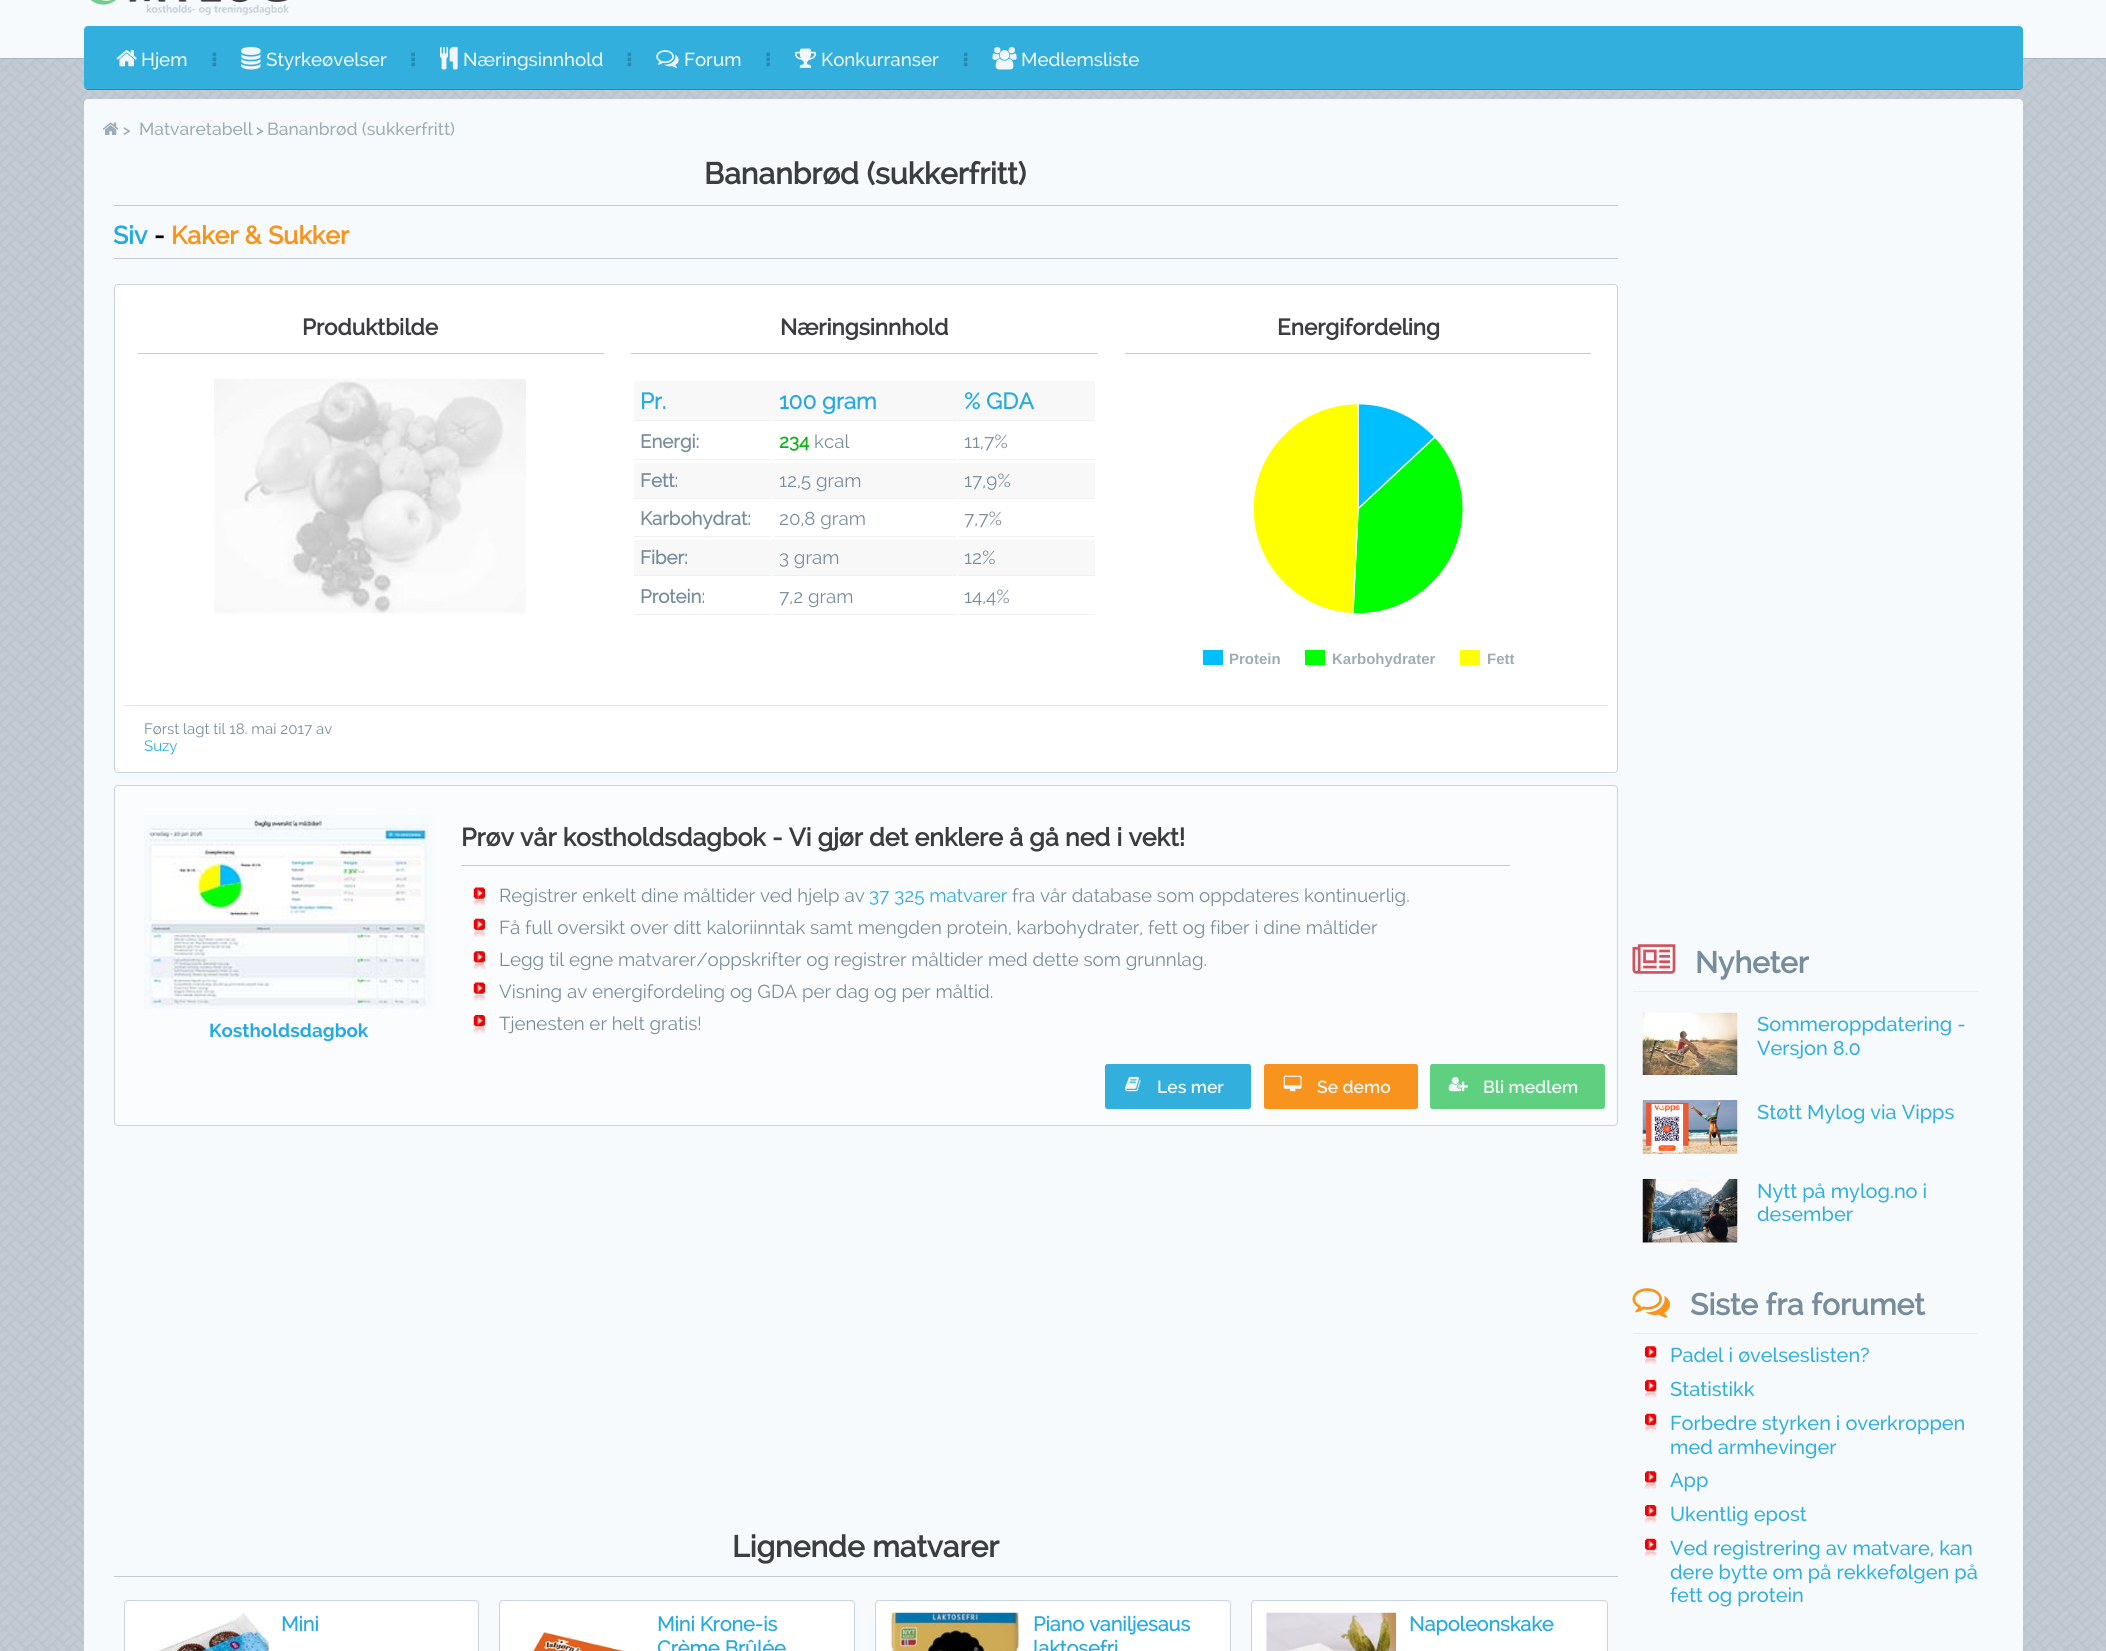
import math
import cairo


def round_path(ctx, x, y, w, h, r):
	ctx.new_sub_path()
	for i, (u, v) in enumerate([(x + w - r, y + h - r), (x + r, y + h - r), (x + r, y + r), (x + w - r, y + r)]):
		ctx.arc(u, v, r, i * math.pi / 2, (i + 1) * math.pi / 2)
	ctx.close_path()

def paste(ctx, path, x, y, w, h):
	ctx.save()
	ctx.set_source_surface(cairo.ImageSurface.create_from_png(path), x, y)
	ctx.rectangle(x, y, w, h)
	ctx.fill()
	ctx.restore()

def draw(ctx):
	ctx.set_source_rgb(1, 1, 1)
	ctx.paint()
	paste(ctx, 'media/1.png', 0, 58, 2106, 1593)
	ctx.set_source_rgba(0.624, 0.675, 0.718, 0.7)
	ctx.rectangle(0, 58, 2106, 1)
	ctx.fill()
	ctx.set_source_rgb(0.965, 0.98, 0.988)
	ctx.rectangle(0, 0, 2106, 58)
	ctx.fill()
	paste(ctx, 'media/2.png', 90, 0, 199, 15)
	ctx.set_source_rgb(0.173, 0.549, 0.69)
	ctx.new_path()
	ctx.move_to(84, 86)
	ctx.curve_to(84, 88, 86, 90, 88, 90)
	ctx.line_to(2019, 90)
	ctx.curve_to(2021, 90, 2023, 88, 2023, 86)
	ctx.line_to(2023, 32)
	ctx.line_to(2022, 30)
	ctx.line_to(2022, 85)
	ctx.curve_to(2022, 87, 2021, 89, 2019, 89)
	ctx.line_to(88, 89)
	ctx.curve_to(86, 89, 85, 88, 84, 86)
	ctx.close_path()
	ctx.fill()
	ctx.set_source_rgb(0.2, 0.686, 0.871)
	round_path(ctx, 84, 26, 1939, 63, 4)
	ctx.fill()
	paste(ctx, 'media/3.png', 116, 50, 21, 17)
	ctx.select_font_face('Raleway Medium')
	ctx.set_font_size(18.75)
	ctx.set_source_rgb(0.945, 0.965, 0.976)
	ctx.move_to(141, 66)
	ctx.show_text('Hjem')
	paste(ctx, 'media/4.png', 212, 52, 5, 15)
	paste(ctx, 'media/5.png', 241, 47, 20, 23)
	ctx.move_to(266, 66)
	ctx.show_text('Styrkeøvelser')
	paste(ctx, 'media/6.png', 411, 52, 4, 15)
	paste(ctx, 'media/7.png', 440, 46, 18, 24)
	ctx.move_to(463, 66)
	ctx.show_text('Næringsinnhold')
	paste(ctx, 'media/4.png', 627, 52, 5, 15)
	paste(ctx, 'media/8.png', 656, 50, 23, 18)
	ctx.move_to(684, 66)
	ctx.show_text('Forum')
	paste(ctx, 'media/6.png', 766, 52, 4, 15)
	paste(ctx, 'media/9.png', 795, 48, 21, 20)
	ctx.move_to(821, 66)
	ctx.show_text('Konkurranser')
	paste(ctx, 'media/10.png', 963, 52, 5, 15)
	paste(ctx, 'media/11.png', 992, 47, 25, 23)
	ctx.move_to(1021, 66)
	ctx.show_text('Medlemsliste')
	ctx.set_source_rgb(0.965, 0.98, 0.988)
	ctx.new_path()
	ctx.move_to(88, 99)
	ctx.line_to(2019, 99)
	ctx.curve_to(2021, 99, 2023, 101, 2023, 103)
	ctx.line_to(2023, 143)
	ctx.line_to(84, 143)
	ctx.line_to(84, 103)
	ctx.curve_to(84, 101, 86, 99, 88, 99)
	ctx.close_path()
	ctx.fill()
	paste(ctx, 'media/12.png', 103, 122, 16, 13)
	ctx.select_font_face('Raleway', cairo.FONT_SLANT_NORMAL, cairo.FONT_WEIGHT_BOLD)
	ctx.set_font_size(14)
	ctx.set_source_rgb(0.62, 0.678, 0.71)
	ctx.move_to(123, 135)
	ctx.show_text('>')
	ctx.select_font_face('Raleway Medium')
	ctx.set_font_size(17.5)
	ctx.move_to(139, 135)
	ctx.show_text('Matvaretabell')
	ctx.select_font_face('Raleway', cairo.FONT_SLANT_NORMAL, cairo.FONT_WEIGHT_BOLD)
	ctx.set_font_size(14)
	ctx.move_to(256, 135)
	ctx.show_text('>')
	ctx.select_font_face('Raleway Medium')
	ctx.set_font_size(17.5)
	ctx.move_to(267, 135)
	ctx.show_text('Bananbrød (sukkerfritt)')
	ctx.set_source_rgb(0.965, 0.98, 0.988)
	ctx.rectangle(84, 143, 1939, 1508)
	ctx.fill()
	ctx.set_source_rgb(0.765, 0.8, 0.835)
	ctx.rectangle(114, 205, 1504, 1)
	ctx.fill()
	ctx.select_font_face('Raleway', cairo.FONT_SLANT_NORMAL, cairo.FONT_WEIGHT_BOLD)
	ctx.set_font_size(30)
	ctx.set_source_rgb(0.231, 0.239, 0.247)
	ctx.move_to(704, 184)
	ctx.show_text('Bananbrød (sukkerfritt)')
	ctx.set_font_size(25)
	ctx.set_source_rgb(0.153, 0.667, 0.882)
	ctx.move_to(113, 244)
	ctx.show_text('Siv')
	ctx.set_source_rgb(0, 0, 0)
	ctx.move_to(154, 244)
	ctx.show_text('-')
	ctx.set_source_rgb(0.969, 0.58, 0.118)
	ctx.move_to(171, 244)
	ctx.show_text('Kaker & Sukker')
	ctx.set_source_rgb(0.765, 0.8, 0.835)
	ctx.rectangle(114, 258, 1504, 1)
	ctx.fill()
	ctx.set_source_rgb(1, 1, 1)
	round_path(ctx, 114.5, 284.5, 1503, 488, 3.5)
	ctx.fill_preserve()
	ctx.set_source_rgb(0.776, 0.839, 0.875)
	ctx.set_line_width(1)
	ctx.stroke()
	ctx.set_source_rgb(0.765, 0.8, 0.835)
	ctx.rectangle(138, 353, 466, 1)
	ctx.fill()
	ctx.set_font_size(22.5)
	ctx.set_source_rgb(0.231, 0.239, 0.247)
	ctx.move_to(302, 335)
	ctx.show_text('Produktbilde')
	paste(ctx, 'media/13.png', 214, 378, 312, 236)
	ctx.set_source_rgb(0.765, 0.8, 0.835)
	ctx.rectangle(631, 353, 467, 1)
	ctx.fill()
	ctx.set_source_rgb(0.231, 0.239, 0.247)
	ctx.move_to(780, 335)
	ctx.show_text('Næringsinnhold')
	ctx.set_source_rgb(0.969, 0.969, 0.969)
	ctx.rectangle(634, 381, 461, 40)
	ctx.fill()
	ctx.set_source_rgb(0.941, 0.941, 0.941)
	ctx.rectangle(634, 420, 137, 1)
	ctx.fill()
	ctx.select_font_face('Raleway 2', cairo.FONT_SLANT_NORMAL, cairo.FONT_WEIGHT_BOLD)
	ctx.set_source_rgb(0.153, 0.667, 0.882)
	ctx.move_to(640, 409)
	ctx.show_text('Pr.')
	ctx.set_source_rgb(0.941, 0.941, 0.941)
	ctx.rectangle(774, 420, 182, 1)
	ctx.fill()
	ctx.set_source_rgb(0.153, 0.667, 0.882)
	ctx.move_to(779, 409)
	ctx.show_text('100 gram')
	ctx.set_source_rgb(0.941, 0.941, 0.941)
	ctx.rectangle(959, 420, 136, 1)
	ctx.fill()
	ctx.set_source_rgb(0.153, 0.667, 0.882)
	ctx.move_to(964, 409)
	ctx.show_text('% GDA')
	ctx.set_source_rgb(0.941, 0.941, 0.941)
	ctx.rectangle(634, 459, 137, 1)
	ctx.fill()
	ctx.set_font_size(18.75)
	ctx.set_source_rgb(0.467, 0.553, 0.608)
	ctx.move_to(640, 448)
	ctx.show_text('Energi:')
	ctx.set_source_rgb(0.941, 0.941, 0.941)
	ctx.rectangle(774, 459, 182, 1)
	ctx.fill()
	ctx.set_source_rgb(0.043, 0.694, 0.075)
	ctx.move_to(779, 448)
	ctx.show_text('234')
	ctx.select_font_face('Raleway')
	ctx.set_source_rgb(0.467, 0.553, 0.608)
	ctx.move_to(814, 448)
	ctx.show_text('kcal')
	ctx.set_source_rgb(0.941, 0.941, 0.941)
	ctx.rectangle(959, 459, 136, 1)
	ctx.fill()
	ctx.set_source_rgb(0.467, 0.553, 0.608)
	ctx.move_to(964, 448)
	ctx.show_text('11,7%')
	ctx.set_source_rgb(0.969, 0.969, 0.969)
	ctx.rectangle(634, 463, 461, 36)
	ctx.fill()
	ctx.set_source_rgb(0.941, 0.941, 0.941)
	ctx.rectangle(634, 498, 137, 1)
	ctx.fill()
	ctx.select_font_face('Raleway 2', cairo.FONT_SLANT_NORMAL, cairo.FONT_WEIGHT_BOLD)
	ctx.set_source_rgb(0.467, 0.553, 0.608)
	ctx.move_to(640, 487)
	ctx.show_text('Fett:')
	ctx.set_source_rgb(0.941, 0.941, 0.941)
	ctx.rectangle(774, 498, 182, 1)
	ctx.fill()
	ctx.select_font_face('Raleway')
	ctx.set_source_rgb(0.467, 0.553, 0.608)
	ctx.move_to(779, 487)
	ctx.show_text('12,5 gram')
	ctx.set_source_rgb(0.941, 0.941, 0.941)
	ctx.rectangle(959, 498, 136, 1)
	ctx.fill()
	ctx.set_source_rgb(0.467, 0.553, 0.608)
	ctx.move_to(964, 487)
	ctx.show_text('17,9%')
	ctx.set_source_rgb(0.941, 0.941, 0.941)
	ctx.rectangle(634, 536, 137, 1)
	ctx.fill()
	ctx.select_font_face('Raleway 2', cairo.FONT_SLANT_NORMAL, cairo.FONT_WEIGHT_BOLD)
	ctx.set_source_rgb(0.467, 0.553, 0.608)
	ctx.move_to(640, 525)
	ctx.show_text('Karbohydrat:')
	ctx.set_source_rgb(0.941, 0.941, 0.941)
	ctx.rectangle(774, 536, 182, 1)
	ctx.fill()
	ctx.select_font_face('Raleway')
	ctx.set_source_rgb(0.467, 0.553, 0.608)
	ctx.move_to(779, 525)
	ctx.show_text('20,8 gram')
	ctx.set_source_rgb(0.941, 0.941, 0.941)
	ctx.rectangle(959, 536, 136, 1)
	ctx.fill()
	ctx.set_source_rgb(0.467, 0.553, 0.608)
	ctx.move_to(964, 525)
	ctx.show_text('7,7%')
	ctx.set_source_rgb(0.969, 0.969, 0.969)
	ctx.rectangle(634, 540, 461, 36)
	ctx.fill()
	ctx.set_source_rgb(0.941, 0.941, 0.941)
	ctx.rectangle(634, 575, 137, 1)
	ctx.fill()
	ctx.select_font_face('Raleway 2', cairo.FONT_SLANT_NORMAL, cairo.FONT_WEIGHT_BOLD)
	ctx.set_source_rgb(0.467, 0.553, 0.608)
	ctx.move_to(640, 564)
	ctx.show_text('Fiber:')
	ctx.set_source_rgb(0.941, 0.941, 0.941)
	ctx.rectangle(774, 575, 182, 1)
	ctx.fill()
	ctx.select_font_face('Raleway')
	ctx.set_source_rgb(0.467, 0.553, 0.608)
	ctx.move_to(779, 564)
	ctx.show_text('3 gram')
	ctx.set_source_rgb(0.941, 0.941, 0.941)
	ctx.rectangle(959, 575, 136, 1)
	ctx.fill()
	ctx.set_source_rgb(0.467, 0.553, 0.608)
	ctx.move_to(964, 564)
	ctx.show_text('12%')
	ctx.set_source_rgb(0.941, 0.941, 0.941)
	ctx.rectangle(634, 614, 137, 1)
	ctx.fill()
	ctx.select_font_face('Raleway 2', cairo.FONT_SLANT_NORMAL, cairo.FONT_WEIGHT_BOLD)
	ctx.set_source_rgb(0.467, 0.553, 0.608)
	ctx.move_to(640, 603)
	ctx.show_text('Protein:')
	ctx.set_source_rgb(0.941, 0.941, 0.941)
	ctx.rectangle(774, 614, 182, 1)
	ctx.fill()
	ctx.select_font_face('Raleway')
	ctx.set_source_rgb(0.467, 0.553, 0.608)
	ctx.move_to(779, 603)
	ctx.show_text('7,2 gram')
	ctx.set_source_rgb(0.941, 0.941, 0.941)
	ctx.rectangle(959, 614, 136, 1)
	ctx.fill()
	ctx.set_source_rgb(0.467, 0.553, 0.608)
	ctx.move_to(964, 603)
	ctx.show_text('14,4%')
	ctx.set_source_rgb(0.765, 0.8, 0.835)
	ctx.rectangle(1125, 353, 466, 1)
	ctx.fill()
	ctx.select_font_face('Raleway', cairo.FONT_SLANT_NORMAL, cairo.FONT_WEIGHT_BOLD)
	ctx.set_font_size(22.5)
	ctx.set_source_rgb(0.231, 0.239, 0.247)
	ctx.move_to(1277, 335)
	ctx.show_text('Energifordeling')
	paste(ctx, 'media/14.png', 1203, 403, 277, 262)
	ctx.select_font_face('Liberation Sans', cairo.FONT_SLANT_NORMAL, cairo.FONT_WEIGHT_BOLD)
	ctx.set_font_size(15)
	ctx.set_source_rgb(0.62, 0.678, 0.71)
	for x, y, s in [
		(1229, 664, 'Protein'),
		(1332, 664, 'Karbohydrater'),
		(1487, 664, 'Fett'),
	]:
		ctx.move_to(x, y)
		ctx.show_text(s)
	ctx.set_source_rgb(0.894, 0.914, 0.925)
	ctx.rectangle(124, 705, 1484, 1)
	ctx.fill()
	ctx.select_font_face('Raleway')
	ctx.set_source_rgb(0.467, 0.553, 0.608)
	ctx.move_to(144, 734)
	ctx.show_text('Først lagt til 18. mai 2017 av')
	ctx.set_source_rgb(0.153, 0.667, 0.882)
	ctx.move_to(144, 751)
	ctx.show_text('Suzy')
	ctx.set_source_rgb(0.984, 0.988, 0.992)
	round_path(ctx, 114.5, 785.5, 1503, 340, 3.5)
	ctx.fill_preserve()
	ctx.set_source_rgb(0.776, 0.839, 0.875)
	ctx.stroke()
	paste(ctx, 'media/15.png', 144, 815, 289, 194)
	ctx.select_font_face('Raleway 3', cairo.FONT_SLANT_NORMAL, cairo.FONT_WEIGHT_BOLD)
	ctx.set_font_size(18.75)
	ctx.set_source_rgb(0.153, 0.667, 0.882)
	ctx.move_to(209, 1037)
	ctx.show_text('Kostholdsdagbok')
	ctx.set_source_rgb(0.765, 0.8, 0.835)
	ctx.rectangle(461, 865, 1049, 1)
	ctx.fill()
	ctx.select_font_face('Raleway', cairo.FONT_SLANT_NORMAL, cairo.FONT_WEIGHT_BOLD)
	ctx.set_font_size(25)
	ctx.set_source_rgb(0.231, 0.239, 0.247)
	ctx.move_to(461, 846)
	ctx.show_text('Prøv vår kostholdsdagbok - Vi gjør det enklere å gå ned i vekt!')
	paste(ctx, 'media/16.png', 473, 887, 12, 19)
	ctx.select_font_face('Raleway')
	ctx.set_font_size(18.75)
	ctx.set_source_rgb(0.467, 0.553, 0.608)
	ctx.move_to(499, 902)
	ctx.show_text('Registrer enkelt dine måltider ved hjelp av')
	ctx.set_source_rgb(0.153, 0.667, 0.882)
	ctx.move_to(869, 902)
	ctx.show_text('37 325 matvarer')
	ctx.set_source_rgb(0.467, 0.553, 0.608)
	ctx.move_to(1012, 902)
	ctx.show_text('fra vår database som oppdateres kontinuerlig.')
	paste(ctx, 'media/17.png', 473, 918, 12, 19)
	ctx.move_to(499, 934)
	ctx.show_text('Få full oversikt over ditt kaloriinntak samt mengden protein, karbohydrater, fett og fiber i dine måltider')
	paste(ctx, 'media/18.png', 473, 951, 12, 19)
	ctx.move_to(499, 966)
	ctx.show_text('Legg til egne matvarer/oppskrifter og registrer måltider med dette som grunnlag.')
	paste(ctx, 'media/16.png', 473, 982, 12, 19)
	ctx.move_to(499, 998)
	ctx.show_text('Visning av energifordeling og GDA per dag og per måltid.')
	paste(ctx, 'media/19.png', 473, 1015, 12, 19)
	ctx.move_to(499, 1030)
	ctx.show_text('Tjenesten er helt gratis!')
	ctx.set_source_rgb(0.2, 0.686, 0.871)
	round_path(ctx, 1105, 1064, 146, 45, 2.5)
	ctx.fill()
	paste(ctx, 'media/20.png', 1125, 1076, 16, 16)
	ctx.select_font_face('Raleway SemiBold')
	ctx.set_font_size(17.5)
	ctx.set_source_rgb(0.945, 0.965, 0.976)
	ctx.move_to(1157, 1093)
	ctx.show_text('Les mer')
	ctx.set_source_rgb(0.969, 0.58, 0.118)
	round_path(ctx, 1264, 1064, 154, 45, 2.5)
	ctx.fill()
	paste(ctx, 'media/21.png', 1283, 1075, 19, 17)
	ctx.set_source_rgb(0.945, 0.965, 0.976)
	ctx.move_to(1317, 1093)
	ctx.show_text('Se demo')
	ctx.set_source_rgb(0.373, 0.812, 0.502)
	round_path(ctx, 1430, 1064, 175, 45, 2.5)
	ctx.fill()
	paste(ctx, 'media/22.png', 1448, 1076, 20, 16)
	ctx.set_source_rgb(0.945, 0.965, 0.976)
	ctx.move_to(1483, 1093)
	ctx.show_text('Bli medlem')
	ctx.set_source_rgb(0.765, 0.8, 0.835)
	ctx.rectangle(114, 1576, 1504, 1)
	ctx.fill()
	ctx.select_font_face('Raleway', cairo.FONT_SLANT_NORMAL, cairo.FONT_WEIGHT_BOLD)
	ctx.set_font_size(30)
	ctx.set_source_rgb(0.231, 0.239, 0.247)
	ctx.move_to(732, 1557)
	ctx.show_text('Lignende matvarer')
	ctx.set_source_rgb(1, 1, 1)
	round_path(ctx, 124.5, 1600.5, 354, 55, 3.5)
	ctx.fill_preserve()
	ctx.set_source_rgb(0.776, 0.839, 0.875)
	ctx.stroke()
	paste(ctx, 'media/23.png', 154, 1613, 115, 38)
	ctx.select_font_face('Raleway 2', cairo.FONT_SLANT_NORMAL, cairo.FONT_WEIGHT_BOLD)
	ctx.set_font_size(20)
	ctx.set_source_rgb(0.153, 0.667, 0.882)
	ctx.move_to(281, 1631)
	ctx.show_text('Mini')
	ctx.set_source_rgb(1, 1, 1)
	round_path(ctx, 499.5, 1600.5, 355, 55, 3.5)
	ctx.fill_preserve()
	ctx.set_source_rgb(0.776, 0.839, 0.875)
	ctx.stroke()
	paste(ctx, 'media/24.png', 533, 1632, 93, 19)
	ctx.set_source_rgb(0.153, 0.667, 0.882)
	ctx.move_to(657, 1631)
	ctx.show_text('Mini Krone-is')
	ctx.move_to(657, 1655)
	ctx.show_text('Crème Brûlée')
	ctx.set_source_rgb(1, 1, 1)
	round_path(ctx, 875.5, 1600.5, 355, 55, 3.5)
	ctx.fill_preserve()
	ctx.set_source_rgb(0.776, 0.839, 0.875)
	ctx.stroke()
	paste(ctx, 'media/25.png', 890, 1612, 130, 39)
	ctx.set_source_rgb(0.153, 0.667, 0.882)
	ctx.move_to(1033, 1631)
	ctx.show_text('Piano vaniljesaus')
	ctx.move_to(1033, 1655)
	ctx.show_text('laktosefri')
	ctx.set_source_rgb(1, 1, 1)
	round_path(ctx, 1251.5, 1600.5, 356, 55, 3.5)
	ctx.fill_preserve()
	ctx.set_source_rgb(0.776, 0.839, 0.875)
	ctx.stroke()
	paste(ctx, 'media/26.png', 1266, 1612, 131, 39)
	ctx.set_source_rgb(0.153, 0.667, 0.882)
	ctx.move_to(1409, 1631)
	ctx.show_text('Napoleonskake')
	paste(ctx, 'media/27.png', 1632, 944, 44, 30)
	ctx.select_font_face('Raleway', cairo.FONT_SLANT_NORMAL, cairo.FONT_WEIGHT_BOLD)
	ctx.set_font_size(30)
	ctx.set_source_rgb(0.467, 0.553, 0.608)
	ctx.move_to(1695, 973)
	ctx.show_text('Nyheter')
	ctx.set_source_rgb(0.918, 0.918, 0.918)
	ctx.rectangle(1633, 991, 345, 1)
	ctx.fill()
	paste(ctx, 'media/28.png', 1642, 1012, 96, 63)
	ctx.select_font_face('Raleway Medium')
	ctx.set_font_size(20)
	ctx.set_source_rgb(0.2, 0.686, 0.871)
	ctx.move_to(1757, 1031)
	ctx.show_text('Sommeroppdatering -')
	ctx.move_to(1757, 1055)
	ctx.show_text('Versjon 8.0')
	paste(ctx, 'media/29.png', 1642, 1100, 96, 54)
	ctx.move_to(1757, 1119)
	ctx.show_text('Støtt Mylog via Vipps')
	paste(ctx, 'media/30.png', 1642, 1178, 96, 65)
	ctx.move_to(1757, 1198)
	ctx.show_text('Nytt på mylog.no i')
	ctx.move_to(1757, 1221)
	ctx.show_text('desember')
	paste(ctx, 'media/31.png', 1632, 1288, 38, 30)
	ctx.select_font_face('Raleway', cairo.FONT_SLANT_NORMAL, cairo.FONT_WEIGHT_BOLD)
	ctx.set_font_size(30)
	ctx.set_source_rgb(0.467, 0.553, 0.608)
	ctx.move_to(1690, 1315)
	ctx.show_text('Siste fra forumet')
	ctx.set_source_rgb(0.918, 0.918, 0.918)
	ctx.rectangle(1633, 1333, 345, 1)
	ctx.fill()
	paste(ctx, 'media/32.png', 1645, 1346, 12, 19)
	ctx.select_font_face('Raleway Medium')
	ctx.set_font_size(20)
	ctx.set_source_rgb(0.2, 0.686, 0.871)
	ctx.move_to(1670, 1362)
	ctx.show_text('Padel i øvelseslisten?')
	paste(ctx, 'media/33.png', 1645, 1380, 12, 19)
	ctx.move_to(1670, 1396)
	ctx.show_text('Statistikk')
	paste(ctx, 'media/34.png', 1645, 1413, 12, 20)
	ctx.move_to(1670, 1430)
	ctx.show_text('Forbedre styrken i overkroppen')
	ctx.move_to(1670, 1454)
	ctx.show_text('med armhevinger')
	paste(ctx, 'media/32.png', 1645, 1471, 12, 19)
	ctx.move_to(1670, 1487)
	ctx.show_text('App')
	paste(ctx, 'media/33.png', 1645, 1505, 12, 19)
	ctx.move_to(1670, 1521)
	ctx.show_text('Ukentlig epost')
	paste(ctx, 'media/34.png', 1645, 1538, 12, 20)
	for x, y, s in [
		(1670, 1555, 'Ved registrering av matvare, kan'),
		(1670, 1579, 'dere bytte om på rekkefølgen på'),
		(1670, 1602, 'fett og protein'),
	]:
		ctx.move_to(x, y)
		ctx.show_text(s)


surface = cairo.ImageSurface(cairo.FORMAT_RGB24, 2106, 1651)
ctx = cairo.Context(surface)
options = cairo.FontOptions()
options.set_hint_metrics(cairo.HINT_METRICS_OFF)
options.set_hint_style(cairo.HINT_STYLE_NONE)
ctx.set_font_options(options)
ctx.set_miter_limit(4)
draw(ctx)
surface.write_to_png('image.png')
